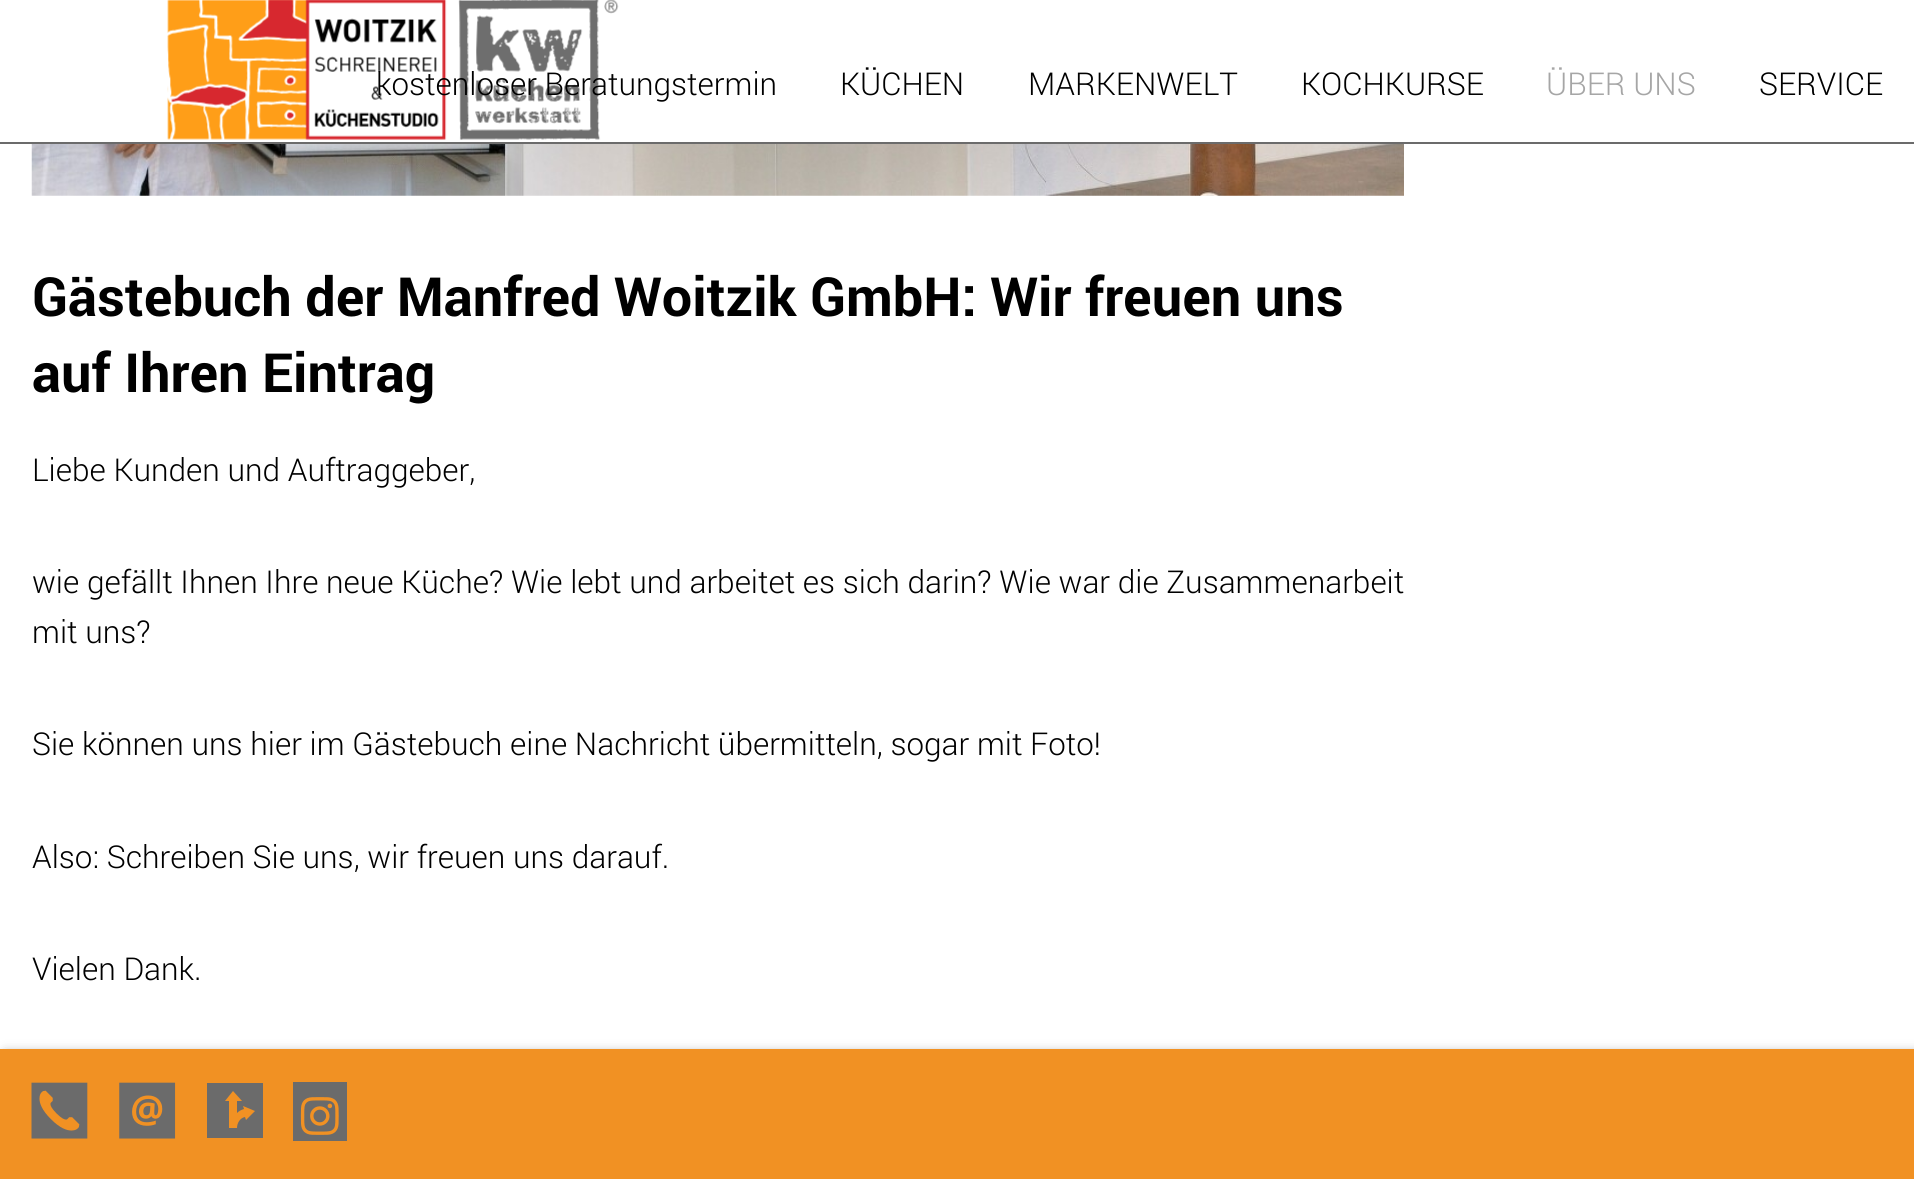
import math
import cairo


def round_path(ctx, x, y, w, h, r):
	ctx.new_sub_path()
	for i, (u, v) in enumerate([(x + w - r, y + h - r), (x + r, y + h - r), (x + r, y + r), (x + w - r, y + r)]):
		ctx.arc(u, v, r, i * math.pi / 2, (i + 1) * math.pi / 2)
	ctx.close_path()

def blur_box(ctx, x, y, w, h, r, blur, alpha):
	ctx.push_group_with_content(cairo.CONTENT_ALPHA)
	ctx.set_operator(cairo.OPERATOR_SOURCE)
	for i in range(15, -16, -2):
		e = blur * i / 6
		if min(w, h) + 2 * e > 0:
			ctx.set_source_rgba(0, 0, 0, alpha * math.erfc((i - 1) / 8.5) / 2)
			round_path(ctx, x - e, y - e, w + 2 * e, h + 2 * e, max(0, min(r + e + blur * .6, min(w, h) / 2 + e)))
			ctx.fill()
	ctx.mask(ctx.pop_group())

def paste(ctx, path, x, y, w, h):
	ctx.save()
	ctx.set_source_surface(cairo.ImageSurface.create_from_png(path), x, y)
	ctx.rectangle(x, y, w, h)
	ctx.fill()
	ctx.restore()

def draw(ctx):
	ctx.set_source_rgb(1, 1, 1)
	ctx.paint()
	ctx.set_source_rgb(0.42, 0.42, 0.42)
	ctx.rectangle(0, 142, 1914, 2)
	ctx.fill()
	paste(ctx, 'media/1.png', 167, 0, 452, 140)
	ctx.select_font_face('Roboto Light')
	ctx.set_font_size(31.5)
	ctx.set_source_rgb(0, 0, 0)
	for x, y, s in [
		(376, 95, 'kostenloser Beratungstermin'),
		(840, 95, 'KÜCHEN'),
		(1028, 95, 'MARKENWELT'),
		(1301, 95, 'KOCHKURSE'),
	]:
		ctx.move_to(x, y)
		ctx.show_text(s)
	ctx.set_source_rgb(0.651, 0.651, 0.651)
	ctx.move_to(1546, 95)
	ctx.show_text('ÜBER UNS')
	ctx.set_source_rgb(0, 0, 0)
	ctx.move_to(1759, 95)
	ctx.show_text('SERVICE')
	paste(ctx, 'media/2.png', 31, 144, 1373, 52)
	ctx.select_font_face('Roboto', cairo.FONT_SLANT_NORMAL, cairo.FONT_WEIGHT_BOLD)
	ctx.set_font_size(54)
	ctx.move_to(32, 316)
	ctx.show_text('Gästebuch der Manfred Woitzik GmbH: Wir freuen uns')
	ctx.move_to(32, 392)
	ctx.show_text('auf Ihren Eintrag')
	ctx.select_font_face('Roboto Light')
	ctx.set_font_size(31.5)
	for x, y, s in [
		(32, 481, 'Liebe Kunden und Auftraggeber,'),
		(32, 593, 'wie gefällt Ihnen Ihre neue Küche? Wie lebt und arbeitet es sich darin? Wie war die Zusammenarbeit'),
		(32, 643, 'mit uns?'),
		(32, 755, 'Sie können uns hier im Gästebuch eine Nachricht übermitteln, sogar mit Foto!'),
		(32, 868, 'Also: Schreiben Sie uns, wir freuen uns darauf.'),
		(32, 980, 'Vielen Dank.'),
	]:
		ctx.move_to(x, y)
		ctx.show_text(s)
	ctx.set_source_rgb(0.196, 0.196, 0.196)
	blur_box(ctx, 5, 1053, 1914, 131, 0, 5.5, 0.5)
	ctx.set_source_rgb(0.945, 0.569, 0.137)
	ctx.rectangle(0, 1049, 1914, 130)
	ctx.fill()
	paste(ctx, 'media/3.png', 31, 1082, 57, 57)
	paste(ctx, 'media/4.png', 119, 1082, 57, 57)
	ctx.set_source_rgb(0.42, 0.42, 0.42)
	ctx.new_path()
	ctx.move_to(263, 1138)
	ctx.line_to(207, 1138)
	ctx.line_to(207, 1083)
	ctx.line_to(263, 1083)
	ctx.close_path()
	ctx.move_to(255, 1111)
	ctx.line_to(243, 1106)
	ctx.line_to(244, 1109)
	ctx.curve_to(241, 1110, 239, 1111, 237, 1113)
	ctx.line_to(237, 1101)
	ctx.line_to(242, 1101)
	ctx.line_to(233, 1091)
	ctx.line_to(225, 1101)
	ctx.line_to(229, 1101)
	ctx.line_to(229, 1128)
	ctx.line_to(237, 1128)
	ctx.curve_to(237, 1123, 240, 1118, 245, 1117)
	ctx.line_to(246, 1120)
	ctx.close_path()
	ctx.fill()
	ctx.rectangle(293, 1082, 54, 59)
	ctx.fill()
	paste(ctx, 'media/5.png', 300, 1097, 39, 38)


surface = cairo.ImageSurface(cairo.FORMAT_RGB24, 1914, 1179)
ctx = cairo.Context(surface)
options = cairo.FontOptions()
options.set_hint_metrics(cairo.HINT_METRICS_OFF)
options.set_hint_style(cairo.HINT_STYLE_NONE)
ctx.set_font_options(options)
ctx.set_miter_limit(4)
draw(ctx)
surface.write_to_png('image.png')
